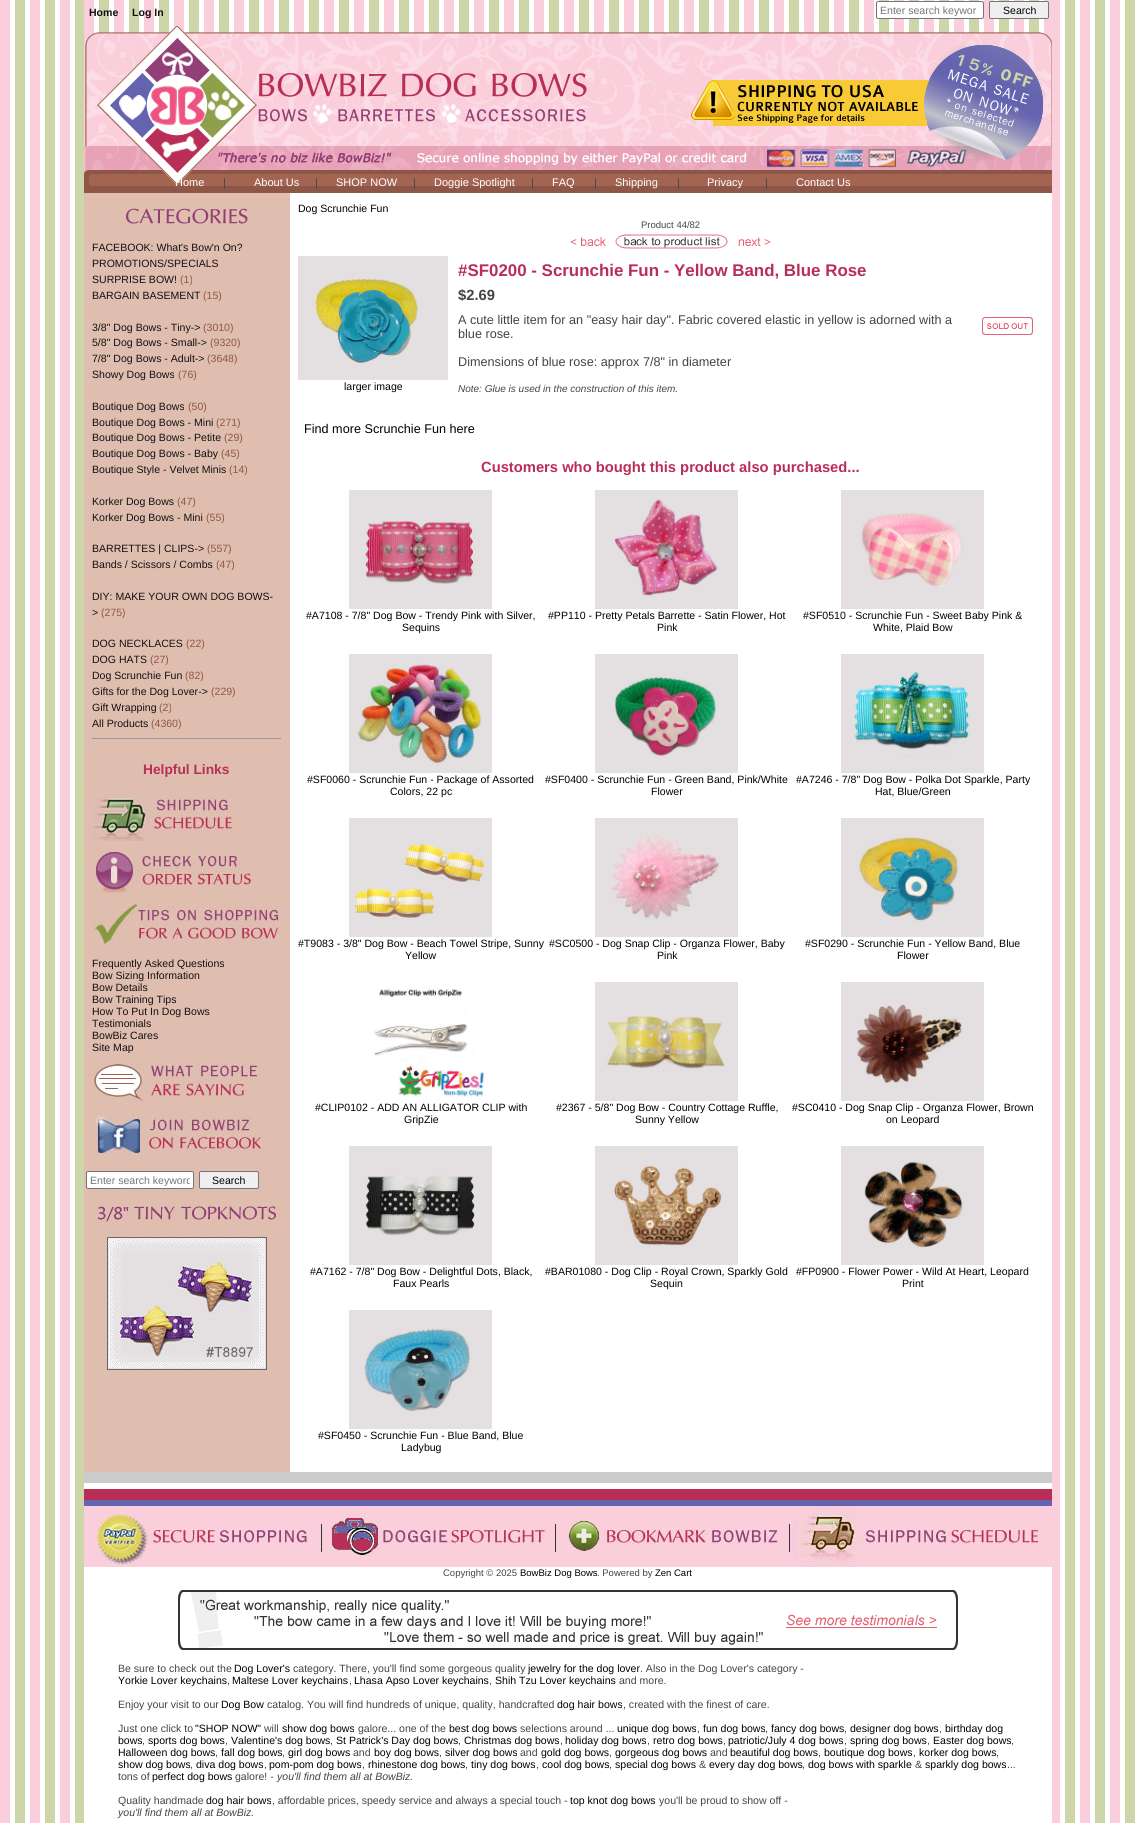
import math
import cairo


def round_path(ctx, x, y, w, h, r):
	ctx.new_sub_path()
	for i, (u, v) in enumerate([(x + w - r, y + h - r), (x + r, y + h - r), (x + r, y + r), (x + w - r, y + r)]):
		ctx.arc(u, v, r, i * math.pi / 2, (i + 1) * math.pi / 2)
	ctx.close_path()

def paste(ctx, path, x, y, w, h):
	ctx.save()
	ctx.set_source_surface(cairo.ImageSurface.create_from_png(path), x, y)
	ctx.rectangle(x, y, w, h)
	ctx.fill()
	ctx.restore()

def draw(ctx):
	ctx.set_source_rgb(1, 1, 1)
	ctx.paint()
	paste(ctx, 'media/1.png', 0, 0, 1135, 1823)
	ctx.set_source_rgb(1, 1, 1)
	ctx.rectangle(84, 193, 968, 1630)
	ctx.fill()
	paste(ctx, 'media/2.png', 84, 0, 968, 26)
	ctx.select_font_face('Liberation Sans', cairo.FONT_SLANT_NORMAL, cairo.FONT_WEIGHT_BOLD)
	ctx.set_font_size(10.55)
	ctx.set_source_rgb(0.067, 0.067, 0.067)
	ctx.move_to(89, 16)
	ctx.show_text('Home')
	ctx.move_to(132, 16)
	ctx.show_text('Log In')
	ctx.set_source_rgb(1, 1, 1)
	round_path(ctx, 876.5, 1.5, 107, 17, 1.5)
	ctx.fill_preserve()
	ctx.set_source_rgb(0.463, 0.463, 0.463)
	ctx.set_line_width(1)
	ctx.stroke()
	ctx.select_font_face('Liberation Sans')
	ctx.set_source_rgb(0.459, 0.459, 0.459)
	ctx.move_to(880, 14)
	ctx.show_text('Enter search keywor')
	ctx.set_source_rgb(0.937, 0.937, 0.937)
	round_path(ctx, 989.5, 1.5, 59, 17, 1.5)
	ctx.fill_preserve()
	ctx.set_source_rgb(0.463, 0.463, 0.463)
	ctx.stroke()
	ctx.set_source_rgb(0, 0, 0)
	ctx.move_to(1003, 14)
	ctx.show_text('Search')
	paste(ctx, 'media/3.png', 84, 26, 968, 144)
	paste(ctx, 'media/4.png', 84, 170, 968, 23)
	ctx.set_font_size(11)
	ctx.set_source_rgb(1, 1, 1)
	ctx.move_to(175, 186)
	ctx.show_text('Home')
	ctx.set_source_rgb(0.267, 0.267, 0.267)
	ctx.move_to(223, 186)
	ctx.show_text('|')
	ctx.set_source_rgb(1, 1, 1)
	ctx.move_to(254, 186)
	ctx.show_text('About Us')
	ctx.set_source_rgb(0.267, 0.267, 0.267)
	ctx.move_to(315, 186)
	ctx.show_text('|')
	ctx.set_source_rgb(1, 1, 1)
	ctx.move_to(336, 186)
	ctx.show_text('SHOP NOW')
	ctx.set_source_rgb(0.267, 0.267, 0.267)
	ctx.move_to(413, 186)
	ctx.show_text('|')
	ctx.set_source_rgb(1, 1, 1)
	ctx.move_to(434, 186)
	ctx.show_text('Doggie Spotlight')
	ctx.set_source_rgb(0.267, 0.267, 0.267)
	ctx.move_to(531, 186)
	ctx.show_text('|')
	ctx.set_source_rgb(1, 1, 1)
	ctx.move_to(552, 186)
	ctx.show_text('FAQ')
	ctx.set_source_rgb(0.267, 0.267, 0.267)
	ctx.move_to(594, 186)
	ctx.show_text('|')
	ctx.set_source_rgb(1, 1, 1)
	ctx.move_to(615, 186)
	ctx.show_text('Shipping')
	ctx.set_source_rgb(0.267, 0.267, 0.267)
	ctx.move_to(677, 186)
	ctx.show_text('|')
	ctx.set_source_rgb(1, 1, 1)
	ctx.move_to(707, 186)
	ctx.show_text('Privacy')
	ctx.set_source_rgb(0.267, 0.267, 0.267)
	ctx.move_to(765, 186)
	ctx.show_text('|')
	ctx.set_source_rgb(1, 1, 1)
	ctx.move_to(796, 186)
	ctx.show_text('Contact Us')
	ctx.set_source_rgb(0.878, 0.745, 0.686)
	ctx.rectangle(84, 193, 206, 1279)
	ctx.fill()
	paste(ctx, 'media/5.png', 126, 208, 122, 16)
	ctx.set_font_size(10.55)
	ctx.set_source_rgb(0.067, 0.067, 0.067)
	for x, y, s in [
		(92, 251, 'FACEBOOK: What\'s Bow\'n On?'),
		(92, 267, 'PROMOTIONS/SPECIALS'),
		(92, 283, 'SURPRISE BOW!'),
	]:
		ctx.move_to(x, y)
		ctx.show_text(s)
	ctx.set_source_rgb(0.557, 0.337, 0.275)
	ctx.move_to(180, 283)
	ctx.show_text('(1)')
	ctx.set_source_rgb(0.067, 0.067, 0.067)
	ctx.move_to(92, 299)
	ctx.show_text('BARGAIN BASEMENT')
	ctx.set_source_rgb(0.557, 0.337, 0.275)
	ctx.move_to(203, 299)
	ctx.show_text('(15)')
	ctx.set_source_rgb(0.067, 0.067, 0.067)
	ctx.move_to(92, 331)
	ctx.show_text('3/8" Dog Bows - Tiny->')
	ctx.set_source_rgb(0.557, 0.337, 0.275)
	ctx.move_to(203, 331)
	ctx.show_text('(3010)')
	ctx.set_source_rgb(0.067, 0.067, 0.067)
	ctx.move_to(92, 346)
	ctx.show_text('5/8" Dog Bows - Small->')
	ctx.set_source_rgb(0.557, 0.337, 0.275)
	ctx.move_to(210, 346)
	ctx.show_text('(9320)')
	ctx.set_source_rgb(0.067, 0.067, 0.067)
	ctx.move_to(92, 362)
	ctx.show_text('7/8" Dog Bows - Adult->')
	ctx.set_source_rgb(0.557, 0.337, 0.275)
	ctx.move_to(207, 362)
	ctx.show_text('(3648)')
	ctx.set_source_rgb(0.067, 0.067, 0.067)
	ctx.move_to(92, 378)
	ctx.show_text('Showy Dog Bows')
	ctx.set_source_rgb(0.557, 0.337, 0.275)
	ctx.move_to(178, 378)
	ctx.show_text('(76)')
	ctx.set_source_rgb(0.067, 0.067, 0.067)
	ctx.move_to(92, 410)
	ctx.show_text('Boutique Dog Bows')
	ctx.set_source_rgb(0.557, 0.337, 0.275)
	ctx.move_to(188, 410)
	ctx.show_text('(50)')
	ctx.set_source_rgb(0.067, 0.067, 0.067)
	ctx.move_to(92, 426)
	ctx.show_text('Boutique Dog Bows - Mini')
	ctx.set_source_rgb(0.557, 0.337, 0.275)
	ctx.move_to(216, 426)
	ctx.show_text('(271)')
	ctx.set_source_rgb(0.067, 0.067, 0.067)
	ctx.move_to(92, 441)
	ctx.show_text('Boutique Dog Bows - Petite')
	ctx.set_source_rgb(0.557, 0.337, 0.275)
	ctx.move_to(224, 441)
	ctx.show_text('(29)')
	ctx.set_source_rgb(0.067, 0.067, 0.067)
	ctx.move_to(92, 457)
	ctx.show_text('Boutique Dog Bows - Baby')
	ctx.set_source_rgb(0.557, 0.337, 0.275)
	ctx.move_to(221, 457)
	ctx.show_text('(45)')
	ctx.set_source_rgb(0.067, 0.067, 0.067)
	ctx.move_to(92, 473)
	ctx.show_text('Boutique Style - Velvet Minis')
	ctx.set_source_rgb(0.557, 0.337, 0.275)
	ctx.move_to(229, 473)
	ctx.show_text('(14)')
	ctx.set_source_rgb(0.067, 0.067, 0.067)
	ctx.move_to(92, 505)
	ctx.show_text('Korker Dog Bows')
	ctx.set_source_rgb(0.557, 0.337, 0.275)
	ctx.move_to(177, 505)
	ctx.show_text('(47)')
	ctx.set_source_rgb(0.067, 0.067, 0.067)
	ctx.move_to(92, 521)
	ctx.show_text('Korker Dog Bows - Mini')
	ctx.set_source_rgb(0.557, 0.337, 0.275)
	ctx.move_to(206, 521)
	ctx.show_text('(55)')
	ctx.set_source_rgb(0.067, 0.067, 0.067)
	ctx.move_to(92, 552)
	ctx.show_text('BARRETTES | CLIPS->')
	ctx.set_source_rgb(0.557, 0.337, 0.275)
	ctx.move_to(207, 552)
	ctx.show_text('(557)')
	ctx.set_source_rgb(0.067, 0.067, 0.067)
	ctx.move_to(92, 568)
	ctx.show_text('Bands / Scissors / Combs')
	ctx.set_source_rgb(0.557, 0.337, 0.275)
	ctx.move_to(216, 568)
	ctx.show_text('(47)')
	ctx.set_source_rgb(0.067, 0.067, 0.067)
	ctx.move_to(92, 600)
	ctx.show_text('DIY: MAKE YOUR OWN DOG BOWS-')
	ctx.move_to(92, 616)
	ctx.show_text('>')
	ctx.set_source_rgb(0.557, 0.337, 0.275)
	ctx.move_to(101, 616)
	ctx.show_text('(275)')
	ctx.set_source_rgb(0.067, 0.067, 0.067)
	ctx.move_to(92, 647)
	ctx.show_text('DOG NECKLACES')
	ctx.set_source_rgb(0.557, 0.337, 0.275)
	ctx.move_to(186, 647)
	ctx.show_text('(22)')
	ctx.set_source_rgb(0.067, 0.067, 0.067)
	ctx.move_to(92, 663)
	ctx.show_text('DOG HATS')
	ctx.set_source_rgb(0.557, 0.337, 0.275)
	ctx.move_to(150, 663)
	ctx.show_text('(27)')
	ctx.set_source_rgb(0.067, 0.067, 0.067)
	ctx.move_to(92, 679)
	ctx.show_text('Dog Scrunchie Fun')
	ctx.set_source_rgb(0.557, 0.337, 0.275)
	ctx.move_to(185, 679)
	ctx.show_text('(82)')
	ctx.set_source_rgb(0.067, 0.067, 0.067)
	ctx.move_to(92, 695)
	ctx.show_text('Gifts for the Dog Lover->')
	ctx.set_source_rgb(0.557, 0.337, 0.275)
	ctx.move_to(211, 695)
	ctx.show_text('(229)')
	ctx.set_source_rgb(0.067, 0.067, 0.067)
	ctx.move_to(92, 711)
	ctx.show_text('Gift Wrapping')
	ctx.set_source_rgb(0.557, 0.337, 0.275)
	ctx.move_to(159, 711)
	ctx.show_text('(2)')
	ctx.set_source_rgb(0.067, 0.067, 0.067)
	ctx.move_to(92, 727)
	ctx.show_text('All Products')
	ctx.set_source_rgb(0.557, 0.337, 0.275)
	ctx.move_to(151, 727)
	ctx.show_text('(4360)')
	ctx.set_source_rgb(0.604, 0.604, 0.604)
	ctx.rectangle(92, 738, 189, 1)
	ctx.fill()
	ctx.select_font_face('Liberation Sans', cairo.FONT_SLANT_NORMAL, cairo.FONT_WEIGHT_BOLD)
	ctx.set_font_size(13.75)
	ctx.set_source_rgb(0.725, 0.18, 0.341)
	ctx.move_to(143, 774)
	ctx.show_text('Helpful Links')
	paste(ctx, 'media/6.png', 92, 797, 144, 44)
	paste(ctx, 'media/7.png', 92, 851, 160, 42)
	paste(ctx, 'media/8.png', 92, 897, 190, 48)
	ctx.select_font_face('Liberation Sans')
	ctx.set_font_size(10.55)
	ctx.set_source_rgb(0.067, 0.067, 0.067)
	for x, y, s in [
		(92, 967, 'Frequently Asked Questions'),
		(92, 979, 'Bow Sizing Information'),
		(92, 991, 'Bow Details'),
		(92, 1003, 'Bow Training Tips'),
		(92, 1015, 'How To Put In Dog Bows'),
		(92, 1027, 'Testimonials'),
		(92, 1039, 'BowBiz Cares'),
		(92, 1051, 'Site Map'),
	]:
		ctx.move_to(x, y)
		ctx.show_text(s)
	paste(ctx, 'media/9.png', 92, 1053, 168, 48)
	paste(ctx, 'media/10.png', 92, 1115, 173, 40)
	ctx.set_source_rgb(1, 1, 1)
	round_path(ctx, 86.5, 1171.5, 107, 17, 1.5)
	ctx.fill_preserve()
	ctx.set_source_rgb(0.463, 0.463, 0.463)
	ctx.stroke()
	ctx.save()
	ctx.rectangle(90, 1174, 100, 12)
	ctx.clip()
	ctx.set_source_rgb(0.459, 0.459, 0.459)
	ctx.move_to(90, 1184)
	ctx.show_text('Enter search keyword')
	ctx.restore()
	ctx.set_source_rgb(0.937, 0.937, 0.937)
	round_path(ctx, 199.5, 1171.5, 59, 17, 1.5)
	ctx.fill_preserve()
	ctx.set_source_rgb(0.463, 0.463, 0.463)
	ctx.stroke()
	ctx.set_source_rgb(0, 0, 0)
	ctx.move_to(212, 1184)
	ctx.show_text('Search')
	paste(ctx, 'media/11.png', 98, 1206, 178, 16)
	paste(ctx, 'media/12.png', 107, 1237, 160, 133)
	ctx.move_to(298, 212)
	ctx.show_text('Dog Scrunchie Fun')
	ctx.set_font_size(9.5)
	ctx.set_source_rgb(0.267, 0.267, 0.267)
	ctx.move_to(641, 228)
	ctx.show_text('Product 44/82')
	paste(ctx, 'media/13.png', 570, 237, 36, 9)
	paste(ctx, 'media/14.png', 615, 234, 113, 15)
	paste(ctx, 'media/15.png', 738, 237, 33, 9)
	ctx.select_font_face('Liberation Sans', cairo.FONT_SLANT_NORMAL, cairo.FONT_WEIGHT_BOLD)
	ctx.set_font_size(16.9)
	ctx.set_source_rgb(0.725, 0.18, 0.341)
	ctx.move_to(458, 276)
	ctx.show_text('#SF0200 - Scrunchie Fun - Yellow Band, Blue Rose')
	ctx.set_font_size(14.75)
	ctx.set_source_rgb(0.267, 0.267, 0.267)
	ctx.move_to(458, 300)
	ctx.show_text('$2.69')
	ctx.select_font_face('Liberation Sans')
	ctx.set_font_size(12.65)
	for x, y, s in [
		(458, 324, 'A cute little item for an "easy hair day". Fabric covered elastic in yellow is adorned with a'),
		(458, 338, 'blue rose.'),
		(458, 366, 'Dimensions of blue rose: approx 7/8" in diameter'),
	]:
		ctx.move_to(x, y)
		ctx.show_text(s)
	ctx.select_font_face('Liberation Sans', cairo.FONT_SLANT_ITALIC)
	ctx.set_font_size(10)
	ctx.move_to(458, 392)
	ctx.show_text('Note: Glue is used in the construction of this item.')
	ctx.select_font_face('Liberation Sans')
	ctx.set_font_size(12.65)
	ctx.set_source_rgb(0, 0, 0)
	ctx.move_to(304, 433)
	ctx.show_text('Find more Scrunchie Fun here')
	paste(ctx, 'media/16.png', 982, 317, 51, 18)
	paste(ctx, 'media/17.png', 298, 256, 150, 124)
	ctx.set_font_size(10.55)
	ctx.move_to(344, 390)
	ctx.show_text('larger image')
	ctx.select_font_face('Liberation Sans', cairo.FONT_SLANT_NORMAL, cairo.FONT_WEIGHT_BOLD)
	ctx.set_font_size(14.75)
	ctx.set_source_rgb(0.725, 0.18, 0.341)
	ctx.move_to(481, 472)
	ctx.show_text('Customers who bought this product also purchased...')
	paste(ctx, 'media/18.png', 349, 490, 143, 119)
	ctx.select_font_face('Liberation Sans')
	ctx.set_font_size(10.55)
	ctx.set_source_rgb(0, 0, 0)
	ctx.move_to(306, 619)
	ctx.show_text('#A7108 - 7/8" Dog Bow - Trendy Pink with Silver,')
	ctx.move_to(402, 631)
	ctx.show_text('Sequins')
	paste(ctx, 'media/19.png', 595, 490, 143, 119)
	ctx.move_to(548, 619)
	ctx.show_text('#PP110 - Pretty Petals Barrette - Satin Flower, Hot')
	ctx.move_to(657, 631)
	ctx.show_text('Pink')
	paste(ctx, 'media/20.png', 841, 490, 143, 119)
	ctx.move_to(803, 619)
	ctx.show_text('#SF0510 - Scrunchie Fun - Sweet Baby Pink &')
	ctx.move_to(873, 631)
	ctx.show_text('White, Plaid Bow')
	paste(ctx, 'media/21.png', 349, 654, 143, 119)
	ctx.move_to(307, 783)
	ctx.show_text('#SF0060 - Scrunchie Fun - Package of Assorted')
	ctx.move_to(390, 795)
	ctx.show_text('Colors, 22 pc')
	paste(ctx, 'media/22.png', 595, 654, 143, 119)
	ctx.move_to(545, 783)
	ctx.show_text('#SF0400 - Scrunchie Fun - Green Band, Pink/White')
	ctx.move_to(651, 795)
	ctx.show_text('Flower')
	paste(ctx, 'media/23.png', 841, 654, 143, 119)
	ctx.move_to(796, 783)
	ctx.show_text('#A7246 - 7/8" Dog Bow - Polka Dot Sparkle, Party')
	ctx.move_to(875, 795)
	ctx.show_text('Hat, Blue/Green')
	paste(ctx, 'media/24.png', 349, 818, 143, 119)
	ctx.move_to(298, 947)
	ctx.show_text('#T9083 - 3/8" Dog Bow - Beach Towel Stripe, Sunny')
	ctx.move_to(405, 959)
	ctx.show_text('Yellow')
	paste(ctx, 'media/25.png', 595, 818, 143, 119)
	ctx.move_to(549, 947)
	ctx.show_text('#SC0500 - Dog Snap Clip - Organza Flower, Baby')
	ctx.move_to(657, 959)
	ctx.show_text('Pink')
	paste(ctx, 'media/26.png', 841, 818, 143, 119)
	ctx.move_to(805, 947)
	ctx.show_text('#SF0290 - Scrunchie Fun - Yellow Band, Blue')
	ctx.move_to(897, 959)
	ctx.show_text('Flower')
	paste(ctx, 'media/27.png', 373, 989, 112, 108)
	ctx.move_to(315, 1111)
	ctx.show_text('#CLIP0102 - ADD AN ALLIGATOR CLIP with')
	ctx.move_to(404, 1123)
	ctx.show_text('GripZie')
	paste(ctx, 'media/28.png', 595, 982, 143, 119)
	ctx.move_to(556, 1111)
	ctx.show_text('#2367 - 5/8" Dog Bow - Country Cottage Ruffle,')
	ctx.move_to(635, 1123)
	ctx.show_text('Sunny Yellow')
	paste(ctx, 'media/29.png', 841, 982, 143, 119)
	ctx.move_to(792, 1111)
	ctx.show_text('#SC0410 - Dog Snap Clip - Organza Flower, Brown')
	ctx.move_to(886, 1123)
	ctx.show_text('on Leopard')
	paste(ctx, 'media/30.png', 349, 1146, 143, 119)
	ctx.move_to(310, 1275)
	ctx.show_text('#A7162 - 7/8" Dog Bow - Delightful Dots, Black,')
	ctx.move_to(393, 1287)
	ctx.show_text('Faux Pearls')
	paste(ctx, 'media/31.png', 595, 1146, 143, 119)
	ctx.move_to(545, 1275)
	ctx.show_text('#BAR01080 - Dog Clip - Royal Crown, Sparkly Gold')
	ctx.move_to(650, 1287)
	ctx.show_text('Sequin')
	paste(ctx, 'media/32.png', 841, 1146, 143, 119)
	ctx.move_to(796, 1275)
	ctx.show_text('#FP0900 - Flower Power - Wild At Heart, Leopard')
	ctx.move_to(902, 1287)
	ctx.show_text('Print')
	paste(ctx, 'media/33.png', 349, 1310, 143, 119)
	ctx.move_to(318, 1439)
	ctx.show_text('#SF0450 - Scrunchie Fun - Blue Band, Blue')
	ctx.move_to(401, 1451)
	ctx.show_text('Ladybug')
	ctx.set_source_rgb(0.8, 0.8, 0.8)
	ctx.rectangle(84, 1472, 968, 11)
	ctx.fill()
	paste(ctx, 'media/34.png', 84, 1489, 968, 17)
	paste(ctx, 'media/35.png', 84, 1506, 239, 61)
	paste(ctx, 'media/36.png', 323, 1506, 234, 61)
	paste(ctx, 'media/37.png', 557, 1506, 234, 61)
	paste(ctx, 'media/38.png', 791, 1506, 261, 61)
	ctx.set_font_size(9.5)
	ctx.set_source_rgb(0.267, 0.267, 0.267)
	ctx.move_to(443, 1576)
	ctx.show_text('Copyright © 2025')
	ctx.set_source_rgb(0, 0, 0)
	ctx.move_to(520, 1576)
	ctx.show_text('BowBiz Dog Bows')
	ctx.set_source_rgb(0.267, 0.267, 0.267)
	ctx.move_to(597, 1576)
	ctx.show_text('. Powered by')
	ctx.set_source_rgb(0, 0, 0)
	ctx.move_to(655, 1576)
	ctx.show_text('Zen Cart')
	paste(ctx, 'media/39.png', 178, 1590, 780, 60)
	ctx.set_font_size(10.55)
	ctx.set_source_rgb(0.267, 0.267, 0.267)
	ctx.move_to(118, 1672)
	ctx.show_text('Be sure to check out the')
	ctx.set_source_rgb(0, 0, 0)
	ctx.move_to(234, 1672)
	ctx.show_text('Dog Lover\'s')
	ctx.set_source_rgb(0.267, 0.267, 0.267)
	ctx.move_to(293, 1672)
	ctx.show_text('category. There, you\'ll find some gorgeous quality')
	ctx.set_source_rgb(0, 0, 0)
	ctx.move_to(528, 1672)
	ctx.show_text('jewelry for the dog lover')
	ctx.set_source_rgb(0.267, 0.267, 0.267)
	ctx.move_to(640, 1672)
	ctx.show_text('. Also in the Dog Lover\'s category -')
	ctx.set_source_rgb(0, 0, 0)
	ctx.move_to(118, 1684)
	ctx.show_text('Yorkie Lover keychains')
	ctx.set_source_rgb(0.267, 0.267, 0.267)
	ctx.move_to(227, 1684)
	ctx.show_text(',')
	ctx.set_source_rgb(0, 0, 0)
	ctx.move_to(232, 1684)
	ctx.show_text('Maltese Lover keychains')
	ctx.set_source_rgb(0.267, 0.267, 0.267)
	ctx.move_to(349, 1684)
	ctx.show_text(',')
	ctx.set_source_rgb(0, 0, 0)
	ctx.move_to(354, 1684)
	ctx.show_text('Lhasa Apso Lover keychains')
	ctx.set_source_rgb(0.267, 0.267, 0.267)
	ctx.move_to(489, 1684)
	ctx.show_text(',')
	ctx.set_source_rgb(0, 0, 0)
	ctx.move_to(495, 1684)
	ctx.show_text('Shih Tzu Lover keychains')
	ctx.set_source_rgb(0.267, 0.267, 0.267)
	ctx.move_to(619, 1684)
	ctx.show_text('and more.')
	ctx.move_to(118, 1708)
	ctx.show_text('Enjoy your visit to our')
	ctx.set_source_rgb(0, 0, 0)
	ctx.move_to(221, 1708)
	ctx.show_text('Dog Bow')
	ctx.set_source_rgb(0.267, 0.267, 0.267)
	ctx.move_to(267, 1708)
	ctx.show_text('catalog. You will find hundreds of unique, quality, handcrafted')
	ctx.set_source_rgb(0, 0, 0)
	ctx.move_to(557, 1708)
	ctx.show_text('dog hair bows')
	ctx.set_source_rgb(0.267, 0.267, 0.267)
	ctx.move_to(623, 1708)
	ctx.show_text(', created with the finest of care.')
	ctx.move_to(118, 1732)
	ctx.show_text('Just one click to')
	ctx.set_source_rgb(0, 0, 0)
	ctx.move_to(195, 1732)
	ctx.show_text('"SHOP NOW"')
	ctx.set_source_rgb(0.267, 0.267, 0.267)
	ctx.move_to(264, 1732)
	ctx.show_text('will')
	ctx.set_source_rgb(0, 0, 0)
	ctx.move_to(282, 1732)
	ctx.show_text('show dog bows')
	ctx.set_source_rgb(0.267, 0.267, 0.267)
	ctx.move_to(358, 1732)
	ctx.show_text('galore... one of the')
	ctx.set_source_rgb(0, 0, 0)
	ctx.move_to(449, 1732)
	ctx.show_text('best dog bows')
	ctx.set_source_rgb(0.267, 0.267, 0.267)
	ctx.move_to(520, 1732)
	ctx.show_text('selections around ...')
	ctx.set_source_rgb(0, 0, 0)
	ctx.move_to(617, 1732)
	ctx.show_text('unique dog bows')
	ctx.set_source_rgb(0.267, 0.267, 0.267)
	ctx.move_to(697, 1732)
	ctx.show_text(',')
	ctx.set_source_rgb(0, 0, 0)
	ctx.move_to(703, 1732)
	ctx.show_text('fun dog bows')
	ctx.set_source_rgb(0.267, 0.267, 0.267)
	ctx.move_to(765, 1732)
	ctx.show_text(',')
	ctx.set_source_rgb(0, 0, 0)
	ctx.move_to(771, 1732)
	ctx.show_text('fancy dog bows')
	ctx.set_source_rgb(0.267, 0.267, 0.267)
	ctx.move_to(844, 1732)
	ctx.show_text(',')
	ctx.set_source_rgb(0, 0, 0)
	ctx.move_to(850, 1732)
	ctx.show_text('designer dog bows')
	ctx.set_source_rgb(0.267, 0.267, 0.267)
	ctx.move_to(939, 1732)
	ctx.show_text(',')
	ctx.set_source_rgb(0, 0, 0)
	ctx.move_to(945, 1732)
	ctx.show_text('birthday dog')
	ctx.move_to(118, 1744)
	ctx.show_text('bows')
	ctx.set_source_rgb(0.267, 0.267, 0.267)
	ctx.move_to(142, 1744)
	ctx.show_text(',')
	ctx.set_source_rgb(0, 0, 0)
	ctx.move_to(148, 1744)
	ctx.show_text('sports dog bows')
	ctx.set_source_rgb(0.267, 0.267, 0.267)
	ctx.move_to(225, 1744)
	ctx.show_text(',')
	ctx.set_source_rgb(0, 0, 0)
	ctx.move_to(231, 1744)
	ctx.show_text('Valentine\'s dog bows')
	ctx.set_source_rgb(0.267, 0.267, 0.267)
	ctx.move_to(330, 1744)
	ctx.show_text(',')
	ctx.set_source_rgb(0, 0, 0)
	ctx.move_to(336, 1744)
	ctx.show_text('St Patrick\'s Day dog bows')
	ctx.set_source_rgb(0.267, 0.267, 0.267)
	ctx.move_to(458, 1744)
	ctx.show_text(',')
	ctx.set_source_rgb(0, 0, 0)
	ctx.move_to(464, 1744)
	ctx.show_text('Christmas dog bows')
	ctx.set_source_rgb(0.267, 0.267, 0.267)
	ctx.move_to(560, 1744)
	ctx.show_text(',')
	ctx.set_source_rgb(0, 0, 0)
	ctx.move_to(565, 1744)
	ctx.show_text('holiday dog bows')
	ctx.set_source_rgb(0.267, 0.267, 0.267)
	ctx.move_to(647, 1744)
	ctx.show_text(',')
	ctx.set_source_rgb(0, 0, 0)
	ctx.move_to(653, 1744)
	ctx.show_text('retro dog bows')
	ctx.set_source_rgb(0.267, 0.267, 0.267)
	ctx.move_to(723, 1744)
	ctx.show_text(',')
	ctx.set_source_rgb(0, 0, 0)
	ctx.move_to(728, 1744)
	ctx.show_text('patriotic/July 4 dog bows')
	ctx.set_source_rgb(0.267, 0.267, 0.267)
	ctx.move_to(844, 1744)
	ctx.show_text(',')
	ctx.set_source_rgb(0, 0, 0)
	ctx.move_to(850, 1744)
	ctx.show_text('spring dog bows')
	ctx.set_source_rgb(0.267, 0.267, 0.267)
	ctx.move_to(927, 1744)
	ctx.show_text(',')
	ctx.set_source_rgb(0, 0, 0)
	ctx.move_to(933, 1744)
	ctx.show_text('Easter dog bows')
	ctx.set_source_rgb(0.267, 0.267, 0.267)
	ctx.move_to(1011, 1744)
	ctx.show_text(',')
	ctx.set_source_rgb(0, 0, 0)
	ctx.move_to(118, 1756)
	ctx.show_text('Halloween dog bows')
	ctx.set_source_rgb(0.267, 0.267, 0.267)
	ctx.move_to(215, 1756)
	ctx.show_text(',')
	ctx.set_source_rgb(0, 0, 0)
	ctx.move_to(221, 1756)
	ctx.show_text('fall dog bows')
	ctx.set_source_rgb(0.267, 0.267, 0.267)
	ctx.move_to(282, 1756)
	ctx.show_text(',')
	ctx.set_source_rgb(0, 0, 0)
	ctx.move_to(288, 1756)
	ctx.show_text('girl dog bows')
	ctx.set_source_rgb(0.267, 0.267, 0.267)
	ctx.move_to(353, 1756)
	ctx.show_text('and')
	ctx.set_source_rgb(0, 0, 0)
	ctx.move_to(374, 1756)
	ctx.show_text('boy dog bows')
	ctx.set_source_rgb(0.267, 0.267, 0.267)
	ctx.move_to(439, 1756)
	ctx.show_text(',')
	ctx.set_source_rgb(0, 0, 0)
	ctx.move_to(445, 1756)
	ctx.show_text('silver dog bows')
	ctx.set_source_rgb(0.267, 0.267, 0.267)
	ctx.move_to(520, 1756)
	ctx.show_text('and')
	ctx.set_source_rgb(0, 0, 0)
	ctx.move_to(541, 1756)
	ctx.show_text('gold dog bows')
	ctx.set_source_rgb(0.267, 0.267, 0.267)
	ctx.move_to(609, 1756)
	ctx.show_text(',')
	ctx.set_source_rgb(0, 0, 0)
	ctx.move_to(615, 1756)
	ctx.show_text('gorgeous dog bows')
	ctx.set_source_rgb(0.267, 0.267, 0.267)
	ctx.move_to(710, 1756)
	ctx.show_text('and')
	ctx.set_source_rgb(0, 0, 0)
	ctx.move_to(730, 1756)
	ctx.show_text('beautiful dog bows')
	ctx.set_source_rgb(0.267, 0.267, 0.267)
	ctx.move_to(818, 1756)
	ctx.show_text(',')
	ctx.set_source_rgb(0, 0, 0)
	ctx.move_to(824, 1756)
	ctx.show_text('boutique dog bows')
	ctx.set_source_rgb(0.267, 0.267, 0.267)
	ctx.move_to(913, 1756)
	ctx.show_text(',')
	ctx.set_source_rgb(0, 0, 0)
	ctx.move_to(919, 1756)
	ctx.show_text('korker dog bows')
	ctx.set_source_rgb(0.267, 0.267, 0.267)
	ctx.move_to(996, 1756)
	ctx.show_text(',')
	ctx.set_source_rgb(0, 0, 0)
	ctx.move_to(118, 1768)
	ctx.show_text('show dog bows')
	ctx.set_source_rgb(0.267, 0.267, 0.267)
	ctx.move_to(190, 1768)
	ctx.show_text(',')
	ctx.set_source_rgb(0, 0, 0)
	ctx.move_to(196, 1768)
	ctx.show_text('diva dog bows')
	ctx.set_source_rgb(0.267, 0.267, 0.267)
	ctx.move_to(264, 1768)
	ctx.show_text(',')
	ctx.set_source_rgb(0, 0, 0)
	ctx.move_to(269, 1768)
	ctx.show_text('pom-pom dog bows')
	ctx.set_source_rgb(0.267, 0.267, 0.267)
	ctx.move_to(362, 1768)
	ctx.show_text(',')
	ctx.set_source_rgb(0, 0, 0)
	ctx.move_to(368, 1768)
	ctx.show_text('rhinestone dog bows')
	ctx.set_source_rgb(0.267, 0.267, 0.267)
	ctx.move_to(465, 1768)
	ctx.show_text(',')
	ctx.set_source_rgb(0, 0, 0)
	ctx.move_to(471, 1768)
	ctx.show_text('tiny dog bows')
	ctx.set_source_rgb(0.267, 0.267, 0.267)
	ctx.move_to(536, 1768)
	ctx.show_text(',')
	ctx.set_source_rgb(0, 0, 0)
	ctx.move_to(542, 1768)
	ctx.show_text('cool dog bows')
	ctx.set_source_rgb(0.267, 0.267, 0.267)
	ctx.move_to(609, 1768)
	ctx.show_text(',')
	ctx.set_source_rgb(0, 0, 0)
	ctx.move_to(615, 1768)
	ctx.show_text('special dog bows')
	ctx.set_source_rgb(0.267, 0.267, 0.267)
	ctx.move_to(699, 1768)
	ctx.show_text('&')
	ctx.set_source_rgb(0, 0, 0)
	ctx.move_to(709, 1768)
	ctx.show_text('every day dog bows')
	ctx.set_source_rgb(0.267, 0.267, 0.267)
	ctx.move_to(802, 1768)
	ctx.show_text(',')
	ctx.set_source_rgb(0, 0, 0)
	ctx.move_to(808, 1768)
	ctx.show_text('dog bows with sparkle')
	ctx.set_source_rgb(0.267, 0.267, 0.267)
	ctx.move_to(915, 1768)
	ctx.show_text('&')
	ctx.set_source_rgb(0, 0, 0)
	ctx.move_to(925, 1768)
	ctx.show_text('sparkly dog bows')
	ctx.set_source_rgb(0.267, 0.267, 0.267)
	ctx.move_to(1007, 1768)
	ctx.show_text('...')
	ctx.move_to(118, 1780)
	ctx.show_text('tons of')
	ctx.set_source_rgb(0, 0, 0)
	ctx.move_to(152, 1780)
	ctx.show_text('perfect dog bows')
	ctx.set_source_rgb(0.267, 0.267, 0.267)
	ctx.move_to(235, 1780)
	ctx.show_text('galore! -')
	ctx.select_font_face('Liberation Sans', cairo.FONT_SLANT_ITALIC)
	ctx.move_to(277, 1780)
	ctx.show_text('you\'ll find them all at BowBiz.')
	ctx.select_font_face('Liberation Sans')
	ctx.move_to(118, 1804)
	ctx.show_text('Quality handmade')
	ctx.set_source_rgb(0, 0, 0)
	ctx.move_to(206, 1804)
	ctx.show_text('dog hair bows')
	ctx.set_source_rgb(0.267, 0.267, 0.267)
	ctx.move_to(272, 1804)
	ctx.show_text(', affordable prices, speedy service and always a special touch -')
	ctx.set_source_rgb(0, 0, 0)
	ctx.move_to(570, 1804)
	ctx.show_text('top knot dog bows')
	ctx.set_source_rgb(0.267, 0.267, 0.267)
	ctx.move_to(659, 1804)
	ctx.show_text('you\'ll be proud to show off -')
	ctx.select_font_face('Liberation Sans', cairo.FONT_SLANT_ITALIC)
	ctx.move_to(118, 1816)
	ctx.show_text('you\'ll find them all at BowBiz.')


surface = cairo.ImageSurface(cairo.FORMAT_RGB24, 1135, 1823)
ctx = cairo.Context(surface)
options = cairo.FontOptions()
options.set_hint_metrics(cairo.HINT_METRICS_OFF)
options.set_hint_style(cairo.HINT_STYLE_NONE)
ctx.set_font_options(options)
ctx.set_miter_limit(4)
draw(ctx)
surface.write_to_png('image.png')
